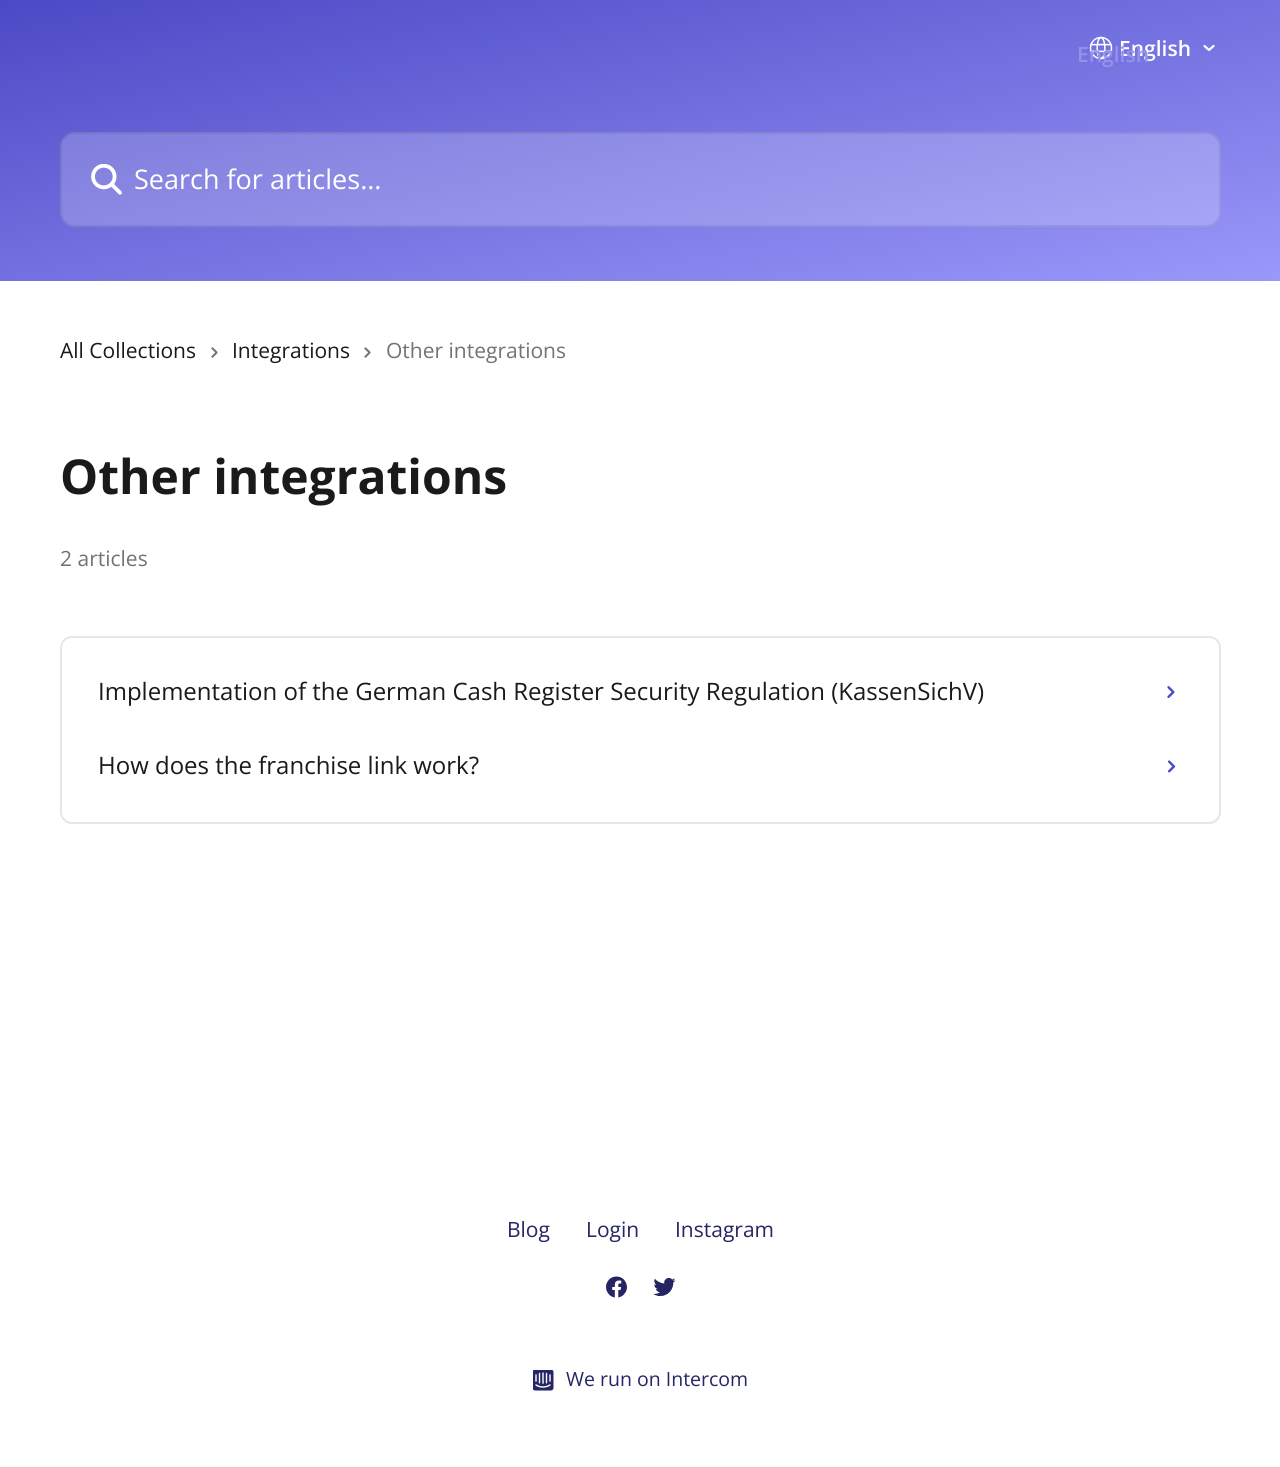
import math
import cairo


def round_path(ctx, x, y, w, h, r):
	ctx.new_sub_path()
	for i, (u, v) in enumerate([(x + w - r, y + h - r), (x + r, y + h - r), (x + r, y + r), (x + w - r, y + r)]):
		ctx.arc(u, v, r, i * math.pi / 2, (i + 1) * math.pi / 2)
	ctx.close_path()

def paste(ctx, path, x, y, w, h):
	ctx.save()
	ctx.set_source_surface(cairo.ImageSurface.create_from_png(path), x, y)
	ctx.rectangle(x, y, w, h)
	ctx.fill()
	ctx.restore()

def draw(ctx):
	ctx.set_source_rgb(1, 1, 1)
	ctx.paint()
	gradient = cairo.LinearGradient(582, -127, 699, 408)
	gradient.add_color_stop_rgba(0, 0.298, 0.286, 0.773, 1)
	gradient.add_color_stop_rgba(1, 0.604, 0.596, 0.98, 1)
	ctx.set_source(gradient)
	ctx.rectangle(0, 0, 1280, 281)
	ctx.fill()
	paste(ctx, 'media/1.png', 1089, 36, 24, 24)
	ctx.select_font_face('Open Sans SemiBold')
	ctx.set_font_size(21)
	ctx.set_source_rgb(1, 1, 1)
	ctx.move_to(1119, 56)
	ctx.show_text('English')
	ctx.set_source_rgb(0.58, 0.576, 0.91)
	ctx.move_to(1077, 62)
	ctx.show_text('English')
	ctx.new_path()
	ctx.move_to(1204.5, 46)
	ctx.line_to(1209, 50)
	ctx.line_to(1213.5, 46)
	ctx.set_source_rgb(1, 1, 1)
	ctx.set_line_width(2.2)
	ctx.set_line_cap(cairo.LINE_CAP_ROUND)
	ctx.set_line_join(cairo.LINE_JOIN_ROUND)
	ctx.stroke()
	ctx.set_source_rgba(1, 1, 1, 0.2)
	round_path(ctx, 60, 132, 1161, 95, 15)
	ctx.fill()
	round_path(ctx, 61, 133, 1159, 93, 14)
	ctx.set_source_rgba(0, 0, 0, 0.08)
	ctx.set_line_width(2)
	ctx.set_line_cap(cairo.LINE_CAP_BUTT)
	ctx.set_line_join(cairo.LINE_JOIN_MITER)
	ctx.stroke()
	paste(ctx, 'media/2.png', 91, 164, 31, 31)
	ctx.select_font_face('Open Sans')
	ctx.set_font_size(27)
	ctx.set_source_rgb(1, 1, 1)
	ctx.move_to(134, 189)
	ctx.show_text('Search for articles...')
	ctx.set_font_size(21)
	ctx.set_source_rgb(0.102, 0.102, 0.102)
	ctx.move_to(60, 358)
	ctx.show_text('All Collections')
	paste(ctx, 'media/3.png', 211, 347, 7, 11)
	ctx.move_to(232, 358)
	ctx.show_text('Integrations')
	paste(ctx, 'media/3.png', 364, 347, 7, 11)
	ctx.set_source_rgb(0.451, 0.451, 0.451)
	ctx.move_to(386, 358)
	ctx.show_text('Other integrations')
	ctx.select_font_face('Open Sans', cairo.FONT_SLANT_NORMAL, cairo.FONT_WEIGHT_BOLD)
	ctx.set_font_size(48)
	ctx.set_source_rgb(0.102, 0.102, 0.102)
	ctx.move_to(60, 494)
	ctx.show_text('Other integrations')
	ctx.select_font_face('Open Sans')
	ctx.set_font_size(21)
	ctx.set_source_rgb(0.451, 0.451, 0.451)
	ctx.move_to(60, 566)
	ctx.show_text('2 articles')
	round_path(ctx, 61, 637, 1159, 186, 11)
	ctx.set_source_rgb(0.902, 0.902, 0.902)
	ctx.stroke()
	ctx.set_font_size(24)
	ctx.set_source_rgb(0.102, 0.102, 0.102)
	ctx.move_to(98, 700)
	ctx.show_text('Implementation of the German Cash Register Security Regulation (KassenSichV)')
	paste(ctx, 'media/4.png', 1167, 686, 8, 12)
	ctx.move_to(98, 774)
	ctx.show_text('How does the franchise link work?')
	paste(ctx, 'media/5.png', 1168, 760, 8, 13)
	ctx.set_font_size(21)
	ctx.set_source_rgb(0.149, 0.145, 0.396)
	for x, y, s in [
		(507, 1237, 'Blog'),
		(586, 1237, 'Login'),
		(675, 1237, 'Instagram'),
	]:
		ctx.move_to(x, y)
		ctx.show_text(s)
	paste(ctx, 'media/6.png', 606, 1276, 21, 22)
	paste(ctx, 'media/7.png', 653, 1278, 23, 18)
	paste(ctx, 'media/8.png', 533, 1370, 21, 21)
	ctx.set_font_size(19.5)
	ctx.move_to(566, 1386)
	ctx.show_text('We run on Intercom')


surface = cairo.ImageSurface(cairo.FORMAT_RGB24, 1280, 1467)
ctx = cairo.Context(surface)
options = cairo.FontOptions()
options.set_hint_metrics(cairo.HINT_METRICS_OFF)
options.set_hint_style(cairo.HINT_STYLE_NONE)
ctx.set_font_options(options)
ctx.set_miter_limit(4)
draw(ctx)
surface.write_to_png('image.png')
